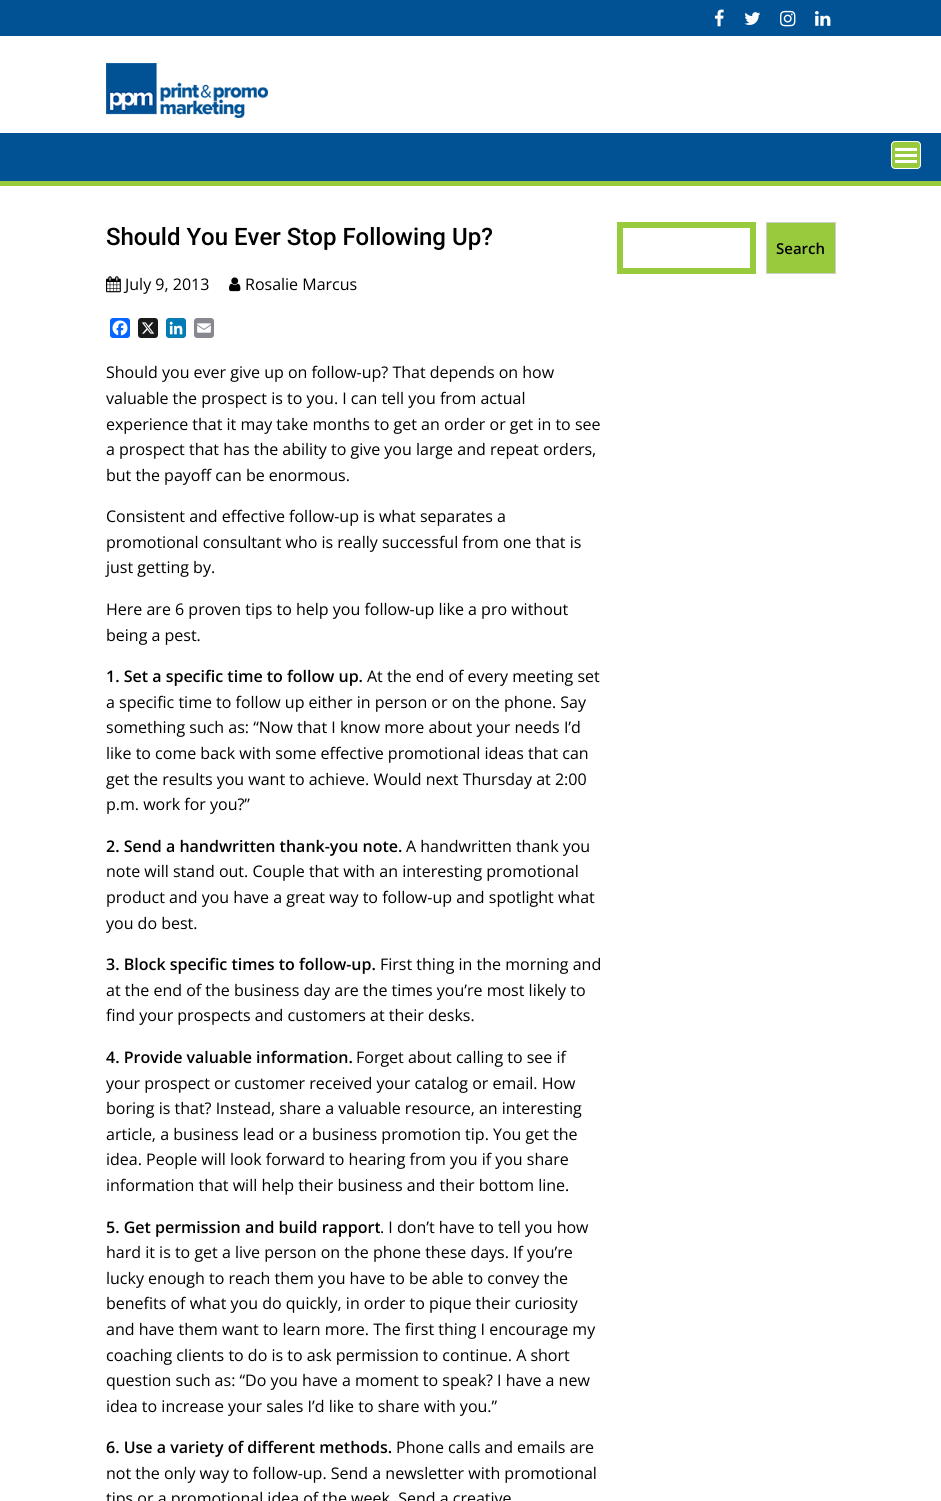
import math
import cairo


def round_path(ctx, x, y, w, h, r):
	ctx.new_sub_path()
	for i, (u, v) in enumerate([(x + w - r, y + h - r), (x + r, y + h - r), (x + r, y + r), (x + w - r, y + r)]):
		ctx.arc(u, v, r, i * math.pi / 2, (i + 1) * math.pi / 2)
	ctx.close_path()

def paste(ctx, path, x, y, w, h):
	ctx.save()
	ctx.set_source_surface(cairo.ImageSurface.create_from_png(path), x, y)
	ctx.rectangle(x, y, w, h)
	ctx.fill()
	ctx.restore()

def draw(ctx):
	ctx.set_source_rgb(1, 1, 1)
	ctx.paint()
	ctx.set_source_rgb(0, 0.322, 0.584)
	ctx.rectangle(0, 0, 941, 36)
	ctx.fill()
	paste(ctx, 'media/1.png', 714, 9, 10, 18)
	paste(ctx, 'media/2.png', 744, 12, 17, 13)
	paste(ctx, 'media/3.png', 780, 10, 16, 17)
	paste(ctx, 'media/4.png', 815, 11, 16, 15)
	paste(ctx, 'media/5.png', 106, 63, 162, 55)
	ctx.rectangle(0, 133, 941, 48)
	ctx.fill()
	ctx.set_source_rgb(0.592, 0.792, 0.239)
	ctx.rectangle(0, 181, 941, 5)
	ctx.fill()
	round_path(ctx, 891.5, 141.5, 29, 27, 3.5)
	ctx.fill_preserve()
	ctx.set_source_rgb(1, 1, 1)
	ctx.set_line_width(1)
	ctx.stroke()
	ctx.rectangle(895, 160, 22, 3)
	ctx.rectangle(895, 154, 22, 3)
	ctx.rectangle(895, 148, 22, 3)
	ctx.fill()
	ctx.select_font_face('Roboto Medium')
	ctx.set_font_size(24)
	ctx.set_source_rgb(0, 0, 0)
	ctx.move_to(106, 245)
	ctx.show_text('Should You Ever Stop Following Up?')
	paste(ctx, 'media/6.png', 106, 276, 15, 17)
	ctx.select_font_face('Open Sans')
	ctx.set_font_size(16)
	ctx.move_to(125, 290)
	ctx.show_text('July 9, 2013')
	paste(ctx, 'media/7.png', 229, 277, 12, 15)
	ctx.move_to(245, 290)
	ctx.show_text('Rosalie Marcus')
	ctx.set_source_rgb(0.031, 0.4, 1)
	round_path(ctx, 110, 318, 20, 20, 3)
	ctx.fill()
	paste(ctx, 'media/8.png', 112, 320, 16, 16)
	ctx.set_source_rgb(0.102, 0.102, 0.102)
	round_path(ctx, 138, 318, 20, 20, 3)
	ctx.fill()
	paste(ctx, 'media/9.png', 141, 322, 14, 12)
	ctx.set_source_rgb(0, 0.482, 0.71)
	round_path(ctx, 166, 318, 20, 20, 3)
	ctx.fill()
	paste(ctx, 'media/10.png', 169, 321, 14, 14)
	ctx.set_source_rgb(0.533, 0.537, 0.565)
	round_path(ctx, 194, 318, 20, 20, 3)
	ctx.fill()
	paste(ctx, 'media/11.png', 197, 323, 14, 10)
	ctx.set_source_rgb(0, 0, 0)
	for x, y, s in [
		(106, 378, 'Should you ever give up on follow-up? That depends on how'),
		(106, 404, 'valuable the prospect is to you. I can tell you from actual'),
		(106, 430, 'experience that it may take months to get an order or get in to see'),
		(106, 455, 'a prospect that has the ability to give you large and repeat orders,'),
		(106, 481, 'but the payoff can be enormous.'),
		(106, 522, 'Consistent and effective follow-up is what separates a'),
		(106, 548, 'promotional consultant who is really successful from one that is'),
		(106, 573, 'just getting by.'),
		(106, 615, 'Here are 6 proven tips to help you follow-up like a pro without'),
		(106, 641, 'being a pest.'),
	]:
		ctx.move_to(x, y)
		ctx.show_text(s)
	ctx.select_font_face('Open Sans SemiBold')
	ctx.move_to(106, 682)
	ctx.show_text('1. Set a specific time to follow up.')
	ctx.select_font_face('Open Sans')
	for x, y, s in [
		(367, 682, 'At the end of every meeting set'),
		(106, 708, 'a specific time to follow up either in person or on the phone. Say'),
		(106, 733, 'something such as: “Now that I know more about your needs I’d'),
		(106, 759, 'like to come back with some effective promotional ideas that can'),
		(106, 785, 'get the results you want to achieve. Would next Thursday at 2:00'),
		(106, 810, 'p.m. work for you?”'),
	]:
		ctx.move_to(x, y)
		ctx.show_text(s)
	ctx.select_font_face('Open Sans SemiBold')
	ctx.move_to(106, 852)
	ctx.show_text('2. Send a handwritten thank-you note.')
	ctx.select_font_face('Open Sans')
	for x, y, s in [
		(406, 852, 'A handwritten thank you'),
		(106, 877, 'note will stand out. Couple that with an interesting promotional'),
		(106, 903, 'product and you have a great way to follow-up and spotlight what'),
		(106, 929, 'you do best.'),
	]:
		ctx.move_to(x, y)
		ctx.show_text(s)
	ctx.select_font_face('Open Sans SemiBold')
	ctx.move_to(106, 970)
	ctx.show_text('3. Block specific times to follow-up.')
	ctx.select_font_face('Open Sans')
	for x, y, s in [
		(380, 970, 'First thing in the morning and'),
		(106, 996, 'at the end of the business day are the times you’re most likely to'),
		(106, 1021, 'find your prospects and customers at their desks.'),
	]:
		ctx.move_to(x, y)
		ctx.show_text(s)
	ctx.select_font_face('Open Sans SemiBold')
	ctx.move_to(106, 1063)
	ctx.show_text('4. Provide valuable information.')
	ctx.select_font_face('Open Sans')
	for x, y, s in [
		(356, 1063, 'Forget about calling to see if'),
		(106, 1089, 'your prospect or customer received your catalog or email. How'),
		(106, 1114, 'boring is that? Instead, share a valuable resource, an interesting'),
		(106, 1140, 'article, a business lead or a business promotion tip. You get the'),
		(106, 1165, 'idea. People will look forward to hearing from you if you share'),
		(106, 1191, 'information that will help their business and their bottom line.'),
	]:
		ctx.move_to(x, y)
		ctx.show_text(s)
	ctx.select_font_face('Open Sans SemiBold')
	ctx.move_to(106, 1233)
	ctx.show_text('5. Get permission and build rapport')
	ctx.select_font_face('Open Sans')
	for x, y, s in [
		(380, 1233, '. I don’t have to tell you how'),
		(106, 1258, 'hard it is to get a live person on the phone these days. If you’re'),
		(106, 1284, 'lucky enough to reach them you have to be able to convey the'),
		(106, 1309, 'benefits of what you do quickly, in order to pique their curiosity'),
		(106, 1335, 'and have them want to learn more. The first thing I encourage my'),
		(106, 1361, 'coaching clients to do is to ask permission to continue. A short'),
		(106, 1386, 'question such as: “Do you have a moment to speak? I have a new'),
		(106, 1412, 'idea to increase your sales I’d like to share with you.”'),
	]:
		ctx.move_to(x, y)
		ctx.show_text(s)
	ctx.select_font_face('Open Sans SemiBold')
	ctx.move_to(106, 1453)
	ctx.show_text('6. Use a variety of different methods.')
	ctx.select_font_face('Open Sans')
	for x, y, s in [
		(396, 1453, 'Phone calls and emails are'),
		(106, 1479, 'not the only way to follow-up. Send a newsletter with promotional'),
		(106, 1504, 'tips or a promotional idea of the week. Send a creative'),
	]:
		ctx.move_to(x, y)
		ctx.show_text(s)
	ctx.rectangle(620, 225, 133, 46)
	ctx.set_source_rgb(0.592, 0.792, 0.239)
	ctx.set_line_width(6)
	ctx.stroke()
	ctx.rectangle(766.5, 222.5, 69, 51)
	ctx.fill_preserve()
	ctx.set_source_rgb(0.8, 0.8, 0.8)
	ctx.set_line_width(1)
	ctx.stroke()
	ctx.select_font_face('Open Sans SemiBold')
	ctx.set_font_size(15)
	ctx.set_source_rgb(0, 0, 0)
	ctx.move_to(776, 254)
	ctx.show_text('Search')


surface = cairo.ImageSurface(cairo.FORMAT_RGB24, 941, 1501)
ctx = cairo.Context(surface)
options = cairo.FontOptions()
options.set_hint_metrics(cairo.HINT_METRICS_OFF)
options.set_hint_style(cairo.HINT_STYLE_NONE)
ctx.set_font_options(options)
ctx.set_miter_limit(4)
draw(ctx)
surface.write_to_png('image.png')
